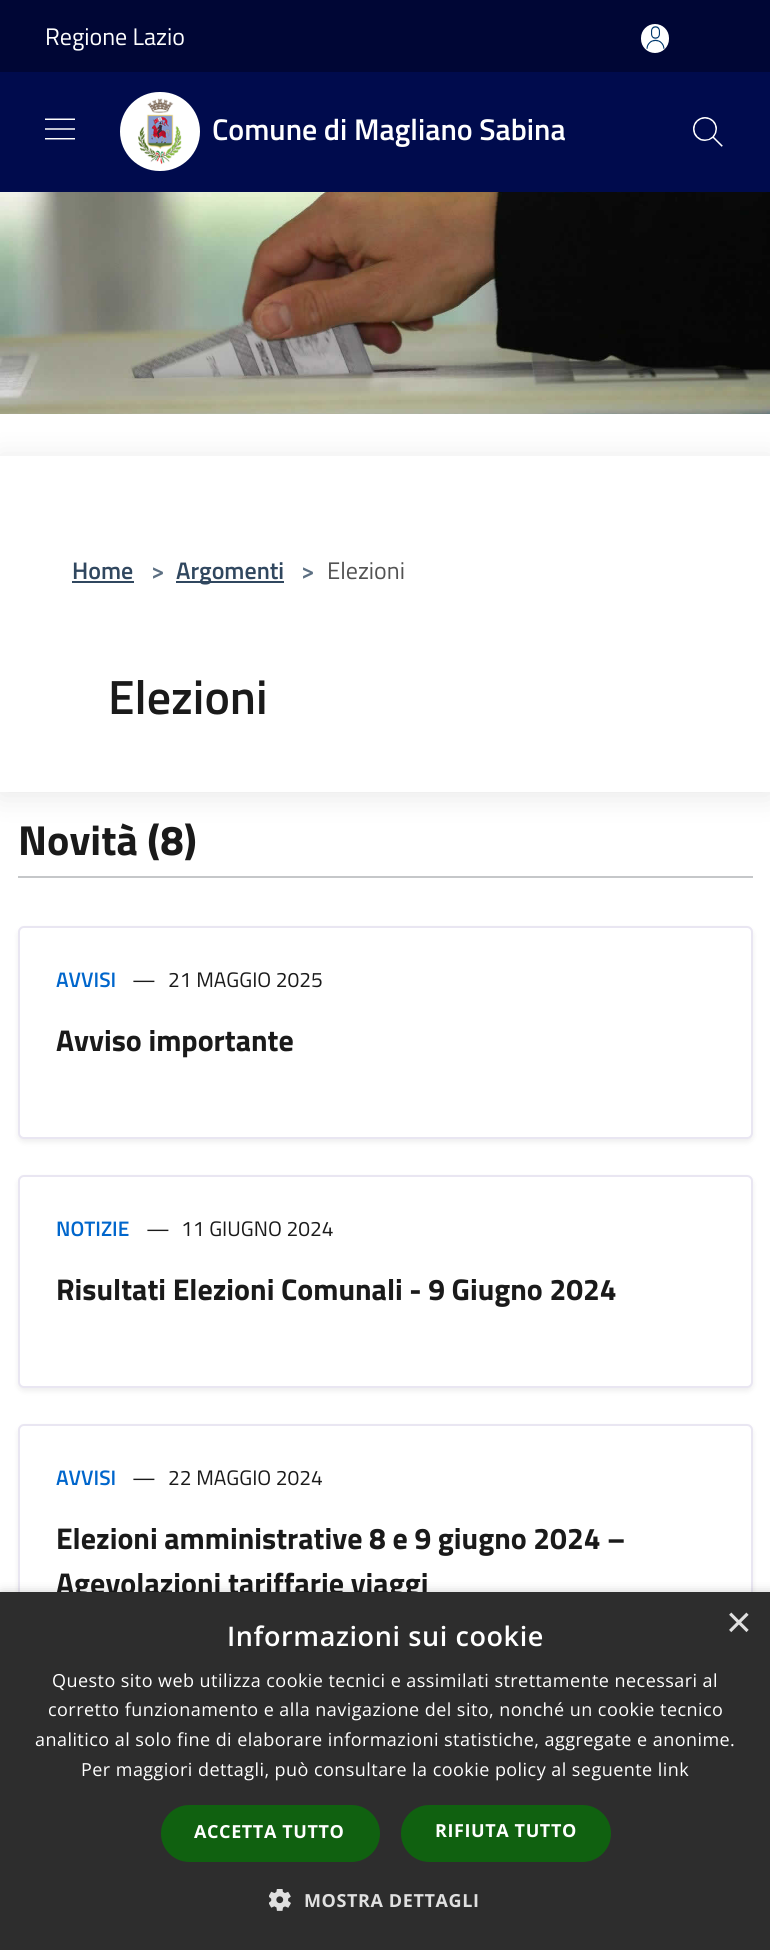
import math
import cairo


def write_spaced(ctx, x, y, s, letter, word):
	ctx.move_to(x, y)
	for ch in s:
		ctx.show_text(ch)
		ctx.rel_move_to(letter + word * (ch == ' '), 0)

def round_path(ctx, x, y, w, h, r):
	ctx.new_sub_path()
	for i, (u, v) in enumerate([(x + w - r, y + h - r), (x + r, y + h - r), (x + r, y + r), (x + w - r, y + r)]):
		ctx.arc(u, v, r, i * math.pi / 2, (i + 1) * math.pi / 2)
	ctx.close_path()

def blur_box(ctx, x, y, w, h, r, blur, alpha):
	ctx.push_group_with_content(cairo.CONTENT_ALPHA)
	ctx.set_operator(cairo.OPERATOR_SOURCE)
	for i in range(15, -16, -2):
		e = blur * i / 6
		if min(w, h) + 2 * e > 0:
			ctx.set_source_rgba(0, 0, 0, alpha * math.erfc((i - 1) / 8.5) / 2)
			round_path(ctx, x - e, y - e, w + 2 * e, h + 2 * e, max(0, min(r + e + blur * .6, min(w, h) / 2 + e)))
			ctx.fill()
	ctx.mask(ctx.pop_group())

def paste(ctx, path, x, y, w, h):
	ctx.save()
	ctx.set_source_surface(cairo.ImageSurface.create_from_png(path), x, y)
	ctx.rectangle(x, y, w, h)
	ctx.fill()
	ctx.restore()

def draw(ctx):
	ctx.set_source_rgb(1, 1, 1)
	ctx.paint()
	ctx.set_source_rgb(0, 0.027, 0.208)
	ctx.rectangle(0, 0, 770, 72)
	ctx.fill()
	ctx.select_font_face('Titillium Web')
	ctx.set_font_size(24)
	ctx.set_source_rgb(1, 1, 1)
	ctx.move_to(45, 45)
	ctx.show_text('Regione Lazio')
	round_path(ctx, 641, 24, 28, 29, 14)
	ctx.fill()
	paste(ctx, 'media/1.png', 646, 26, 19, 23)
	ctx.set_source_rgb(0, 0.043, 0.302)
	ctx.rectangle(0, 72, 770, 120)
	ctx.fill()
	paste(ctx, 'media/2.png', 45, 118, 30, 22)
	ctx.set_source_rgb(1, 1, 1)
	round_path(ctx, 121, 93, 78, 77, 38.5)
	ctx.fill_preserve()
	ctx.stroke()
	paste(ctx, 'media/3.png', 138, 98, 44, 67)
	ctx.select_font_face('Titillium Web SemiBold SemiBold')
	ctx.set_font_size(30)
	ctx.move_to(212, 140)
	ctx.show_text('Comune di Magliano Sabina')
	paste(ctx, 'media/4.png', 693, 117, 30, 30)
	ctx.save()
	ctx.set_fill_rule(cairo.FILL_RULE_EVEN_ODD)
	ctx.new_path()
	ctx.move_to(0, 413)
	ctx.line_to(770, 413)
	ctx.line_to(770, 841)
	ctx.line_to(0, 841)
	ctx.close_path()
	ctx.move_to(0, 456)
	ctx.line_to(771, 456)
	ctx.line_to(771, 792)
	ctx.line_to(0, 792)
	ctx.close_path()
	ctx.clip()
	ctx.set_source_rgb(0, 0, 0)
	blur_box(ctx, 0, 459, 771, 336, 0, 15, 0.1)
	ctx.restore()
	paste(ctx, 'media/5.png', 0, 192, 770, 222)
	ctx.set_font_size(24)
	ctx.set_source_rgb(0.188, 0.278, 0.373)
	ctx.move_to(72, 579)
	ctx.show_text('Home')
	ctx.rectangle(72, 581, 62, 2)
	ctx.fill()
	ctx.set_source_rgb(0.365, 0.439, 0.514)
	ctx.move_to(151, 579)
	ctx.show_text('>')
	ctx.set_source_rgb(0.188, 0.278, 0.373)
	ctx.rectangle(176, 581, 108, 2)
	ctx.fill()
	ctx.move_to(176, 579)
	ctx.show_text('Argomenti')
	ctx.set_source_rgb(0.365, 0.439, 0.514)
	ctx.move_to(301, 579)
	ctx.show_text('>')
	ctx.select_font_face('Titillium Web')
	ctx.set_source_rgb(0.322, 0.322, 0.322)
	ctx.move_to(327, 579)
	ctx.show_text('Elezioni')
	ctx.select_font_face('Titillium Web SemiBold SemiBold')
	ctx.set_font_size(48)
	ctx.set_source_rgb(0.102, 0.102, 0.102)
	ctx.move_to(108, 714)
	ctx.show_text('Elezioni')
	ctx.set_source_rgb(0.773, 0.78, 0.788)
	ctx.rectangle(18, 876, 735, 2)
	ctx.fill()
	ctx.select_font_face('Titillium Web', cairo.FONT_SLANT_NORMAL, cairo.FONT_WEIGHT_BOLD)
	ctx.set_font_size(42)
	ctx.set_source_rgb(0.102, 0.102, 0.102)
	ctx.move_to(18, 855)
	ctx.show_text('Novità (8)')
	ctx.set_source_rgb(0, 0, 0)
	blur_box(ctx, 18, 929, 735, 213, 6, 3, 0.07)
	ctx.set_source_rgb(1, 1, 1)
	round_path(ctx, 19, 927, 733, 211, 5)
	ctx.fill_preserve()
	ctx.set_source_rgb(0.914, 0.902, 0.949)
	ctx.stroke()
	ctx.select_font_face('Titillium Web SemiBold SemiBold')
	ctx.set_font_size(21)
	ctx.set_source_rgb(0, 0.4, 0.8)
	ctx.move_to(56, 987)
	ctx.show_text('AVVISI')
	ctx.select_font_face('Titillium Web')
	ctx.set_source_rgb(0.102, 0.102, 0.102)
	ctx.move_to(132, 987)
	ctx.show_text('—')
	ctx.move_to(168, 987)
	ctx.show_text('21 MAGGIO 2025')
	ctx.select_font_face('Titillium Web', cairo.FONT_SLANT_NORMAL, cairo.FONT_WEIGHT_BOLD)
	ctx.set_font_size(30)
	ctx.move_to(56, 1051)
	ctx.show_text('Avviso importante')
	ctx.set_source_rgb(0, 0, 0)
	blur_box(ctx, 18, 1178, 735, 213, 6, 3, 0.07)
	ctx.set_source_rgb(1, 1, 1)
	round_path(ctx, 19, 1176, 733, 211, 5)
	ctx.fill_preserve()
	ctx.set_source_rgb(0.914, 0.902, 0.949)
	ctx.stroke()
	ctx.select_font_face('Titillium Web SemiBold SemiBold')
	ctx.set_font_size(21)
	ctx.set_source_rgb(0, 0.4, 0.8)
	ctx.move_to(56, 1236)
	ctx.show_text('NOTIZIE')
	ctx.select_font_face('Titillium Web')
	ctx.set_source_rgb(0.102, 0.102, 0.102)
	ctx.move_to(146, 1236)
	ctx.show_text('—')
	ctx.move_to(181, 1236)
	ctx.show_text('11 GIUGNO 2024')
	ctx.select_font_face('Titillium Web', cairo.FONT_SLANT_NORMAL, cairo.FONT_WEIGHT_BOLD)
	ctx.set_font_size(30)
	ctx.move_to(56, 1300)
	ctx.show_text('Risultati Elezioni Comunali - 9 Giugno 2024')
	ctx.set_source_rgb(0, 0, 0)
	blur_box(ctx, 18, 1427, 735, 258, 6, 3, 0.07)
	ctx.set_source_rgb(1, 1, 1)
	round_path(ctx, 19, 1425, 733, 256, 5)
	ctx.fill_preserve()
	ctx.set_source_rgb(0.914, 0.902, 0.949)
	ctx.stroke()
	ctx.select_font_face('Titillium Web SemiBold SemiBold')
	ctx.set_font_size(21)
	ctx.set_source_rgb(0, 0.4, 0.8)
	ctx.move_to(56, 1485)
	ctx.show_text('AVVISI')
	ctx.select_font_face('Titillium Web')
	ctx.set_source_rgb(0.102, 0.102, 0.102)
	ctx.move_to(132, 1485)
	ctx.show_text('—')
	ctx.move_to(168, 1485)
	ctx.show_text('22 MAGGIO 2024')
	ctx.select_font_face('Titillium Web', cairo.FONT_SLANT_NORMAL, cairo.FONT_WEIGHT_BOLD)
	ctx.set_font_size(30)
	ctx.move_to(56, 1549)
	ctx.show_text('Elezioni amministrative 8 e 9 giugno 2024 –')
	ctx.move_to(56, 1594)
	ctx.show_text('Agevolazioni tariffarie viaggi')
	ctx.set_source_rgb(0, 0, 0)
	blur_box(ctx, 2, 1595, 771, 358, 0, 6, 0.35)
	ctx.set_source_rgb(0.176, 0.176, 0.176)
	ctx.rectangle(0, 1592, 770, 358)
	ctx.fill()
	ctx.select_font_face('Liberation Sans')
	ctx.set_font_size(44)
	ctx.set_source_rgb(0.878, 0.878, 0.878)
	ctx.move_to(726, 1637)
	ctx.show_text('×')
	ctx.select_font_face('Open Sans SemiBold')
	ctx.set_font_size(27)
	ctx.set_source_rgb(1, 1, 1)
	write_spaced(ctx, 227, 1646, 'Informazioni sui cookie', 0.6, 0)
	ctx.select_font_face('Open Sans')
	ctx.set_font_size(18)
	for x, y, s in [
		(52, 1687, 'Questo sito web utilizza cookie tecnici e assimilati strettamente necessari al'),
		(48, 1716, 'corretto funzionamento e alla navigazione del sito, nonché un cookie tecnico'),
		(35, 1746, 'analitico al solo fine di elaborare informazioni statistiche, aggregate e anonime.'),
		(81, 1776, 'Per maggiori dettagli, può consultare la cookie policy al seguente link'),
	]:
		write_spaced(ctx, x, y, s, 0.45, 0)
	ctx.set_source_rgb(0.063, 0.38, 0.063)
	round_path(ctx, 161, 1805, 219, 57, 28.5)
	ctx.fill()
	ctx.select_font_face('Open Sans', cairo.FONT_SLANT_NORMAL, cairo.FONT_WEIGHT_BOLD)
	ctx.set_source_rgb(1, 1, 1)
	write_spaced(ctx, 194, 1838, 'ACCETTA TUTTO', 0.6, 0)
	ctx.set_source_rgb(0.063, 0.38, 0.063)
	round_path(ctx, 401, 1805, 210, 57, 28.5)
	ctx.fill()
	ctx.set_source_rgb(1, 1, 1)
	write_spaced(ctx, 435, 1837, 'RIFIUTA TUTTO', 0.6, 0)
	paste(ctx, 'media/6.png', 269, 1889, 22, 22)
	ctx.set_source_rgb(0.878, 0.878, 0.878)
	write_spaced(ctx, 304, 1907, 'MOSTRA DETTAGLI', 0.6, 0)


surface = cairo.ImageSurface(cairo.FORMAT_RGB24, 770, 1950)
ctx = cairo.Context(surface)
options = cairo.FontOptions()
options.set_hint_metrics(cairo.HINT_METRICS_OFF)
options.set_hint_style(cairo.HINT_STYLE_NONE)
ctx.set_font_options(options)
ctx.set_miter_limit(4)
draw(ctx)
surface.write_to_png('image.png')
